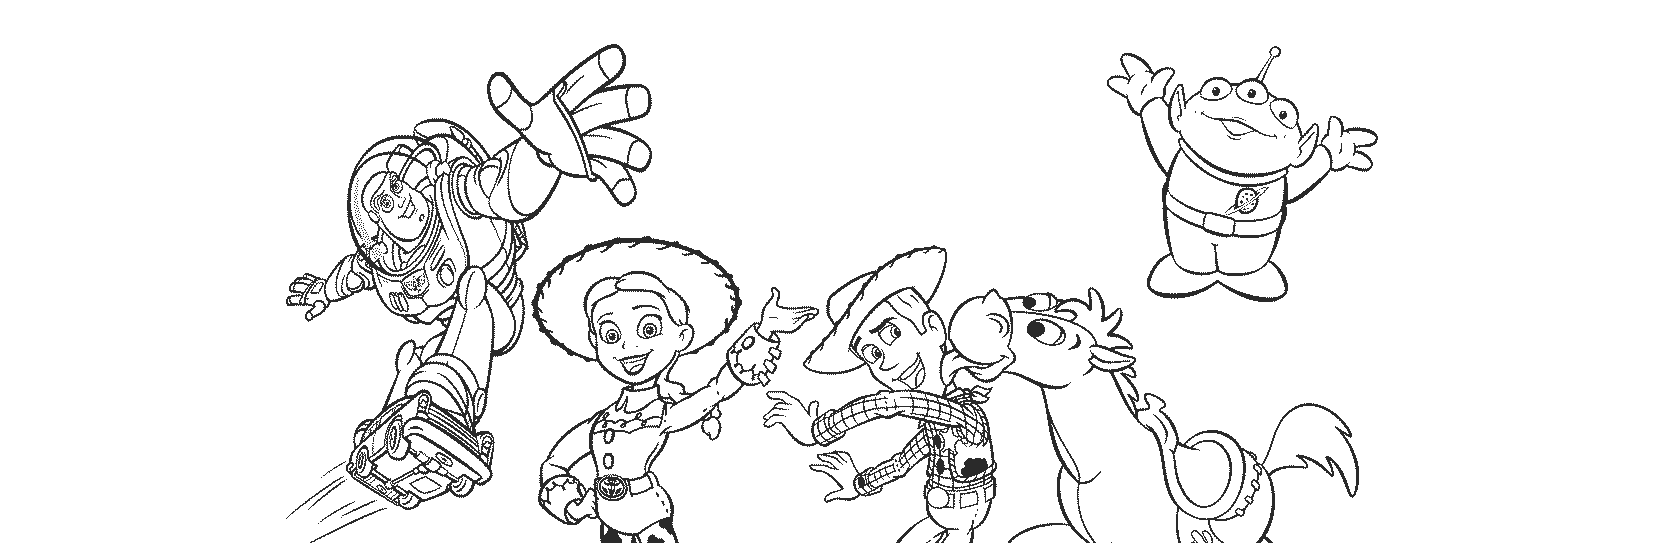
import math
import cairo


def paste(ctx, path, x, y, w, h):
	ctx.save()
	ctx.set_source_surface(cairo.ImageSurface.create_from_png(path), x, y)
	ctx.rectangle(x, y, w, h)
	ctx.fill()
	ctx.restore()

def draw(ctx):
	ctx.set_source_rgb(1, 1, 1)
	ctx.paint()
	paste(ctx, 'media/1.png', 286, 44, 1092, 499)


surface = cairo.ImageSurface(cairo.FORMAT_RGB24, 1671, 543)
ctx = cairo.Context(surface)
options = cairo.FontOptions()
options.set_hint_metrics(cairo.HINT_METRICS_OFF)
options.set_hint_style(cairo.HINT_STYLE_NONE)
ctx.set_font_options(options)
ctx.set_miter_limit(4)
draw(ctx)
surface.write_to_png('image.png')
